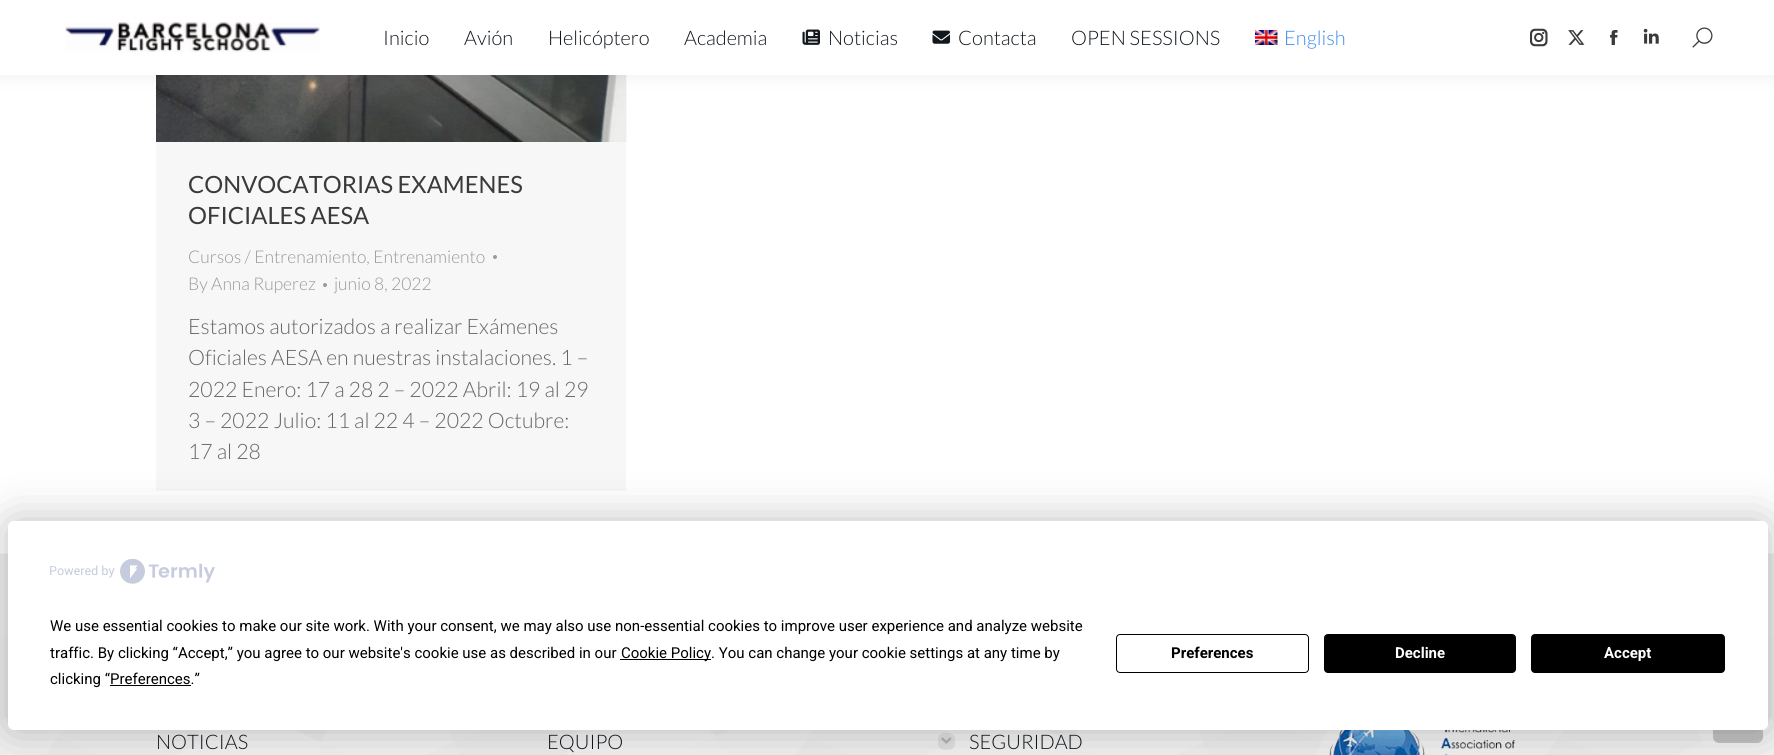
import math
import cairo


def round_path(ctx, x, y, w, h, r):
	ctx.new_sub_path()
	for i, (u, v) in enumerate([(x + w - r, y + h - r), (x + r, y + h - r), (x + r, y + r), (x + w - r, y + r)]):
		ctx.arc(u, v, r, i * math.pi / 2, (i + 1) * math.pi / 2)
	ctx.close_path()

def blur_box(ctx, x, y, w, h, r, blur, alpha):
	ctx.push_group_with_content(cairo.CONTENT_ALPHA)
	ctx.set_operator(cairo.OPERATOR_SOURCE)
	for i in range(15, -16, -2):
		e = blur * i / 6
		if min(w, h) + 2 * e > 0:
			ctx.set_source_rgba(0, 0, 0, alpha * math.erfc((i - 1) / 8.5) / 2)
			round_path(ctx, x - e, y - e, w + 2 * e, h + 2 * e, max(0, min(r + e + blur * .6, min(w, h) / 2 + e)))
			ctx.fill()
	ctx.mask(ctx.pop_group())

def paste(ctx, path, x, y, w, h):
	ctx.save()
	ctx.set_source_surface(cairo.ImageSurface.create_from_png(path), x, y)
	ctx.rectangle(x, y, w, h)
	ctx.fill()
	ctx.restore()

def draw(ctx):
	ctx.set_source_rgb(1, 1, 1)
	ctx.paint()
	paste(ctx, 'media/10.png', 156, 75, 471, 67)
	ctx.set_source_rgb(0, 0, 0)
	blur_box(ctx, -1, -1, 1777, 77, 0, 9.5, 0.07)
	ctx.set_source_rgb(1, 1, 1)
	ctx.rectangle(0, 0, 1774, 75)
	ctx.fill()
	paste(ctx, 'media/1.png', 65, 22, 255, 30)
	ctx.select_font_face('Lato Light')
	ctx.set_font_size(20)
	ctx.set_source_rgb(0.071, 0.09, 0.11)
	for x, y, s in [
		(383, 45, 'Inicio'),
		(464, 45, 'Avión'),
		(548, 45, 'Helicóptero'),
		(684, 45, 'Academia'),
	]:
		ctx.move_to(x, y)
		ctx.show_text(s)
	paste(ctx, 'media/2.png', 802, 29, 18, 16)
	ctx.move_to(828, 45)
	ctx.show_text('Noticias')
	paste(ctx, 'media/3.png', 932, 30, 18, 14)
	ctx.move_to(958, 45)
	ctx.show_text('Contacta')
	ctx.move_to(1071, 45)
	ctx.show_text('OPEN SESSIONS')
	paste(ctx, 'media/4.png', 1255, 30, 23, 15)
	ctx.set_source_rgb(0.231, 0.549, 0.929)
	ctx.move_to(1284, 45)
	ctx.show_text('English')
	paste(ctx, 'media/5.png', 1530, 28, 18, 19)
	paste(ctx, 'media/6.png', 1568, 30, 17, 15)
	paste(ctx, 'media/7.png', 1610, 30, 8, 15)
	paste(ctx, 'media/8.png', 1643, 28, 16, 16)
	paste(ctx, 'media/9.png', 1692, 27, 21, 21)
	ctx.set_source_rgb(0.965, 0.965, 0.965)
	ctx.rectangle(156, 142, 470, 349)
	ctx.fill()
	ctx.select_font_face('Lato')
	ctx.set_font_size(23.75)
	ctx.set_source_rgb(0.227, 0.227, 0.227)
	ctx.move_to(188, 193)
	ctx.show_text('CONVOCATORIAS EXAMENES')
	ctx.move_to(188, 224)
	ctx.show_text('OFICIALES AESA')
	ctx.select_font_face('Lato Light')
	ctx.set_font_size(17.5)
	ctx.set_source_rgb(0.6, 0.6, 0.6)
	ctx.move_to(188, 263)
	ctx.show_text('Cursos / Entrenamiento, Entrenamiento')
	ctx.new_path()
	ctx.arc(495, 257, 2, 0, 2 * math.pi)
	ctx.fill()
	ctx.move_to(188, 290)
	ctx.show_text('By Anna Ruperez')
	ctx.new_path()
	ctx.arc(325, 285, 2, 0, 2 * math.pi)
	ctx.fill()
	ctx.move_to(334, 290)
	ctx.show_text('junio 8, 2022')
	ctx.set_font_size(21.25)
	ctx.set_source_rgb(0.4, 0.4, 0.4)
	for x, y, s in [
		(188, 334, 'Estamos autorizados a realizar Exámenes'),
		(188, 365, 'Oficiales AESA en nuestras instalaciones. 1 –'),
		(188, 397, '2022 Enero: 17 a 28 2 – 2022 Abril: 19 al 29'),
		(188, 428, '3 – 2022 Julio: 11 al 22 4 – 2022 Octubre:'),
		(188, 459, '17 al 28'),
	]:
		ctx.move_to(x, y)
		ctx.show_text(s)
	ctx.set_source_rgb(0.98, 0.98, 0.98)
	ctx.rectangle(0, 554, 1774, 201)
	ctx.fill()
	paste(ctx, 'media/11.png', 0, 553, 1774, 202)
	ctx.set_font_size(20)
	ctx.set_source_rgb(0.071, 0.09, 0.11)
	ctx.move_to(156, 749)
	ctx.show_text('NOTICIAS')
	ctx.move_to(547, 749)
	ctx.show_text('EQUIPO')
	ctx.set_source_rgba(0.533, 0.533, 0.533, 0.15)
	round_path(ctx, 938, 733, 17, 17, 6)
	ctx.fill()
	ctx.set_source_rgb(0.071, 0.09, 0.11)
	ctx.move_to(969, 749)
	ctx.show_text('SEGURIDAD')
	paste(ctx, 'media/12.png', 941, 737, 11, 7)
	paste(ctx, 'media/13.png', 1329, 730, 187, 25)
	ctx.set_source_rgba(0, 0, 0, 0.2)
	round_path(ctx, 1713, 693, 50, 50, 6)
	ctx.fill()
	ctx.set_source_rgb(0, 0, 0)
	blur_box(ctx, 8, 521, 1760, 209, 6, 22, 0.25)
	ctx.set_source_rgb(1, 1, 1)
	round_path(ctx, 8, 521, 1760, 209, 6)
	ctx.fill()
	paste(ctx, 'media/14.png', 50, 559, 165, 25)
	ctx.select_font_face('Roboto')
	ctx.set_font_size(15)
	ctx.set_source_rgb(0, 0, 0)
	ctx.move_to(50, 631)
	ctx.show_text('We use essential cookies to make our site work. With your consent, we may also use non-essential cookies to improve user experience and analyze website')
	ctx.move_to(50, 658)
	ctx.show_text('traffic. By clicking “Accept,” you agree to our website\'s cookie use as described in our')
	ctx.rectangle(620, 659, 91, 1)
	ctx.fill()
	ctx.move_to(621, 658)
	ctx.show_text('Cookie Policy. You can change your cookie settings at any time by')
	ctx.move_to(50, 684)
	ctx.show_text('clicking “Preferences.”')
	ctx.rectangle(110, 685, 81, 1)
	ctx.fill()
	round_path(ctx, 1116.5, 634.5, 192, 38, 3.5)
	ctx.set_line_width(1)
	ctx.stroke()
	ctx.select_font_face('Roboto', cairo.FONT_SLANT_NORMAL, cairo.FONT_WEIGHT_BOLD)
	ctx.move_to(1171, 658)
	ctx.show_text('Preferences')
	round_path(ctx, 1324.5, 634.5, 191, 38, 3.5)
	ctx.fill_preserve()
	ctx.stroke()
	ctx.set_source_rgb(1, 1, 1)
	ctx.move_to(1395, 658)
	ctx.show_text('Decline')
	ctx.set_source_rgb(0, 0, 0)
	round_path(ctx, 1531.5, 634.5, 193, 38, 3.5)
	ctx.fill_preserve()
	ctx.stroke()
	ctx.set_source_rgb(1, 1, 1)
	ctx.move_to(1604, 658)
	ctx.show_text('Accept')


surface = cairo.ImageSurface(cairo.FORMAT_RGB24, 1774, 755)
ctx = cairo.Context(surface)
options = cairo.FontOptions()
options.set_hint_metrics(cairo.HINT_METRICS_OFF)
options.set_hint_style(cairo.HINT_STYLE_NONE)
ctx.set_font_options(options)
ctx.set_miter_limit(4)
draw(ctx)
surface.write_to_png('image.png')
